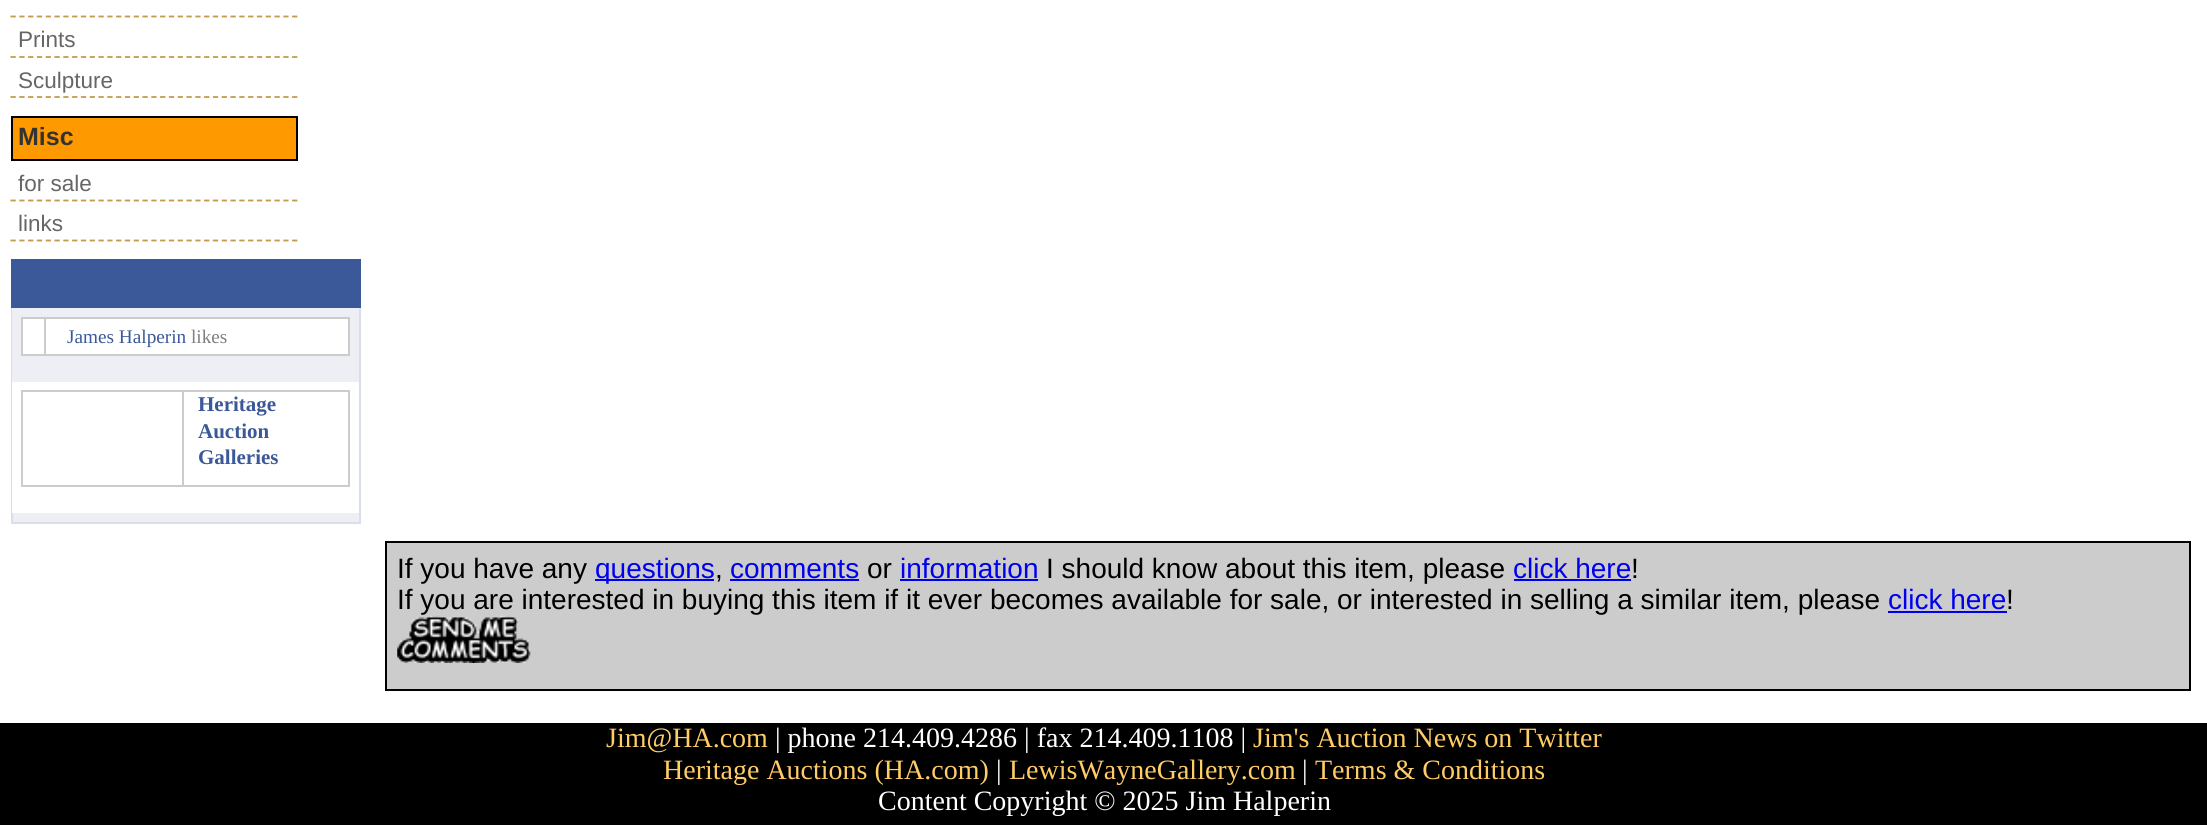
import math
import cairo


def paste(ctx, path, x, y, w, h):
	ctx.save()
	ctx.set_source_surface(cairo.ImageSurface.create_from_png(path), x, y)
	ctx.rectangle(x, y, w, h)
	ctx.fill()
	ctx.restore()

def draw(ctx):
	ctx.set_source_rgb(0, 0, 0)
	ctx.paint()
	ctx.set_source_rgb(1, 1, 1)
	ctx.rectangle(0, 0, 2207, 723)
	ctx.fill()
	ctx.new_path()
	ctx.move_to(10.5, 16.5)
	ctx.line_to(297.5, 16.5)
	ctx.set_source_rgb(0.765, 0.612, 0.306)
	ctx.set_line_width(1.8)
	ctx.set_dash([5.25, 3.55])
	ctx.stroke()
	ctx.new_path()
	ctx.move_to(10.5, 57)
	ctx.line_to(297.5, 57)
	ctx.stroke()
	ctx.select_font_face('Liberation Sans')
	ctx.set_font_size(22.5)
	ctx.set_source_rgb(0.4, 0.4, 0.4)
	ctx.move_to(18, 47)
	ctx.show_text('Prints')
	ctx.new_path()
	ctx.move_to(10.5, 97)
	ctx.line_to(297.5, 97)
	ctx.set_source_rgb(0.765, 0.612, 0.306)
	ctx.stroke()
	ctx.set_source_rgb(0.4, 0.4, 0.4)
	ctx.move_to(18, 88)
	ctx.show_text('Sculpture')
	ctx.set_source_rgb(1, 0.6, 0)
	ctx.rectangle(12, 117, 285, 43)
	ctx.fill_preserve()
	ctx.set_source_rgb(0, 0, 0)
	ctx.set_line_width(2)
	ctx.set_dash([])
	ctx.stroke()
	ctx.select_font_face('Liberation Sans', cairo.FONT_SLANT_NORMAL, cairo.FONT_WEIGHT_BOLD)
	ctx.set_font_size(25)
	ctx.set_source_rgb(0.2, 0.2, 0.2)
	ctx.move_to(18, 145)
	ctx.show_text('Misc')
	ctx.new_path()
	ctx.move_to(10.5, 200.5)
	ctx.line_to(297.5, 200.5)
	ctx.set_source_rgb(0.765, 0.612, 0.306)
	ctx.set_line_width(1.8)
	ctx.set_dash([5.25, 3.55])
	ctx.stroke()
	ctx.select_font_face('Liberation Sans')
	ctx.set_font_size(22.5)
	ctx.set_source_rgb(0.4, 0.4, 0.4)
	ctx.move_to(18, 191)
	ctx.show_text('for sale')
	ctx.new_path()
	ctx.move_to(10.5, 240.5)
	ctx.line_to(297.5, 240.5)
	ctx.set_source_rgb(0.765, 0.612, 0.306)
	ctx.stroke()
	ctx.set_source_rgb(0.4, 0.4, 0.4)
	ctx.move_to(18, 231)
	ctx.show_text('links')
	ctx.set_source_rgb(0.231, 0.349, 0.596)
	ctx.rectangle(11, 259, 350, 49)
	ctx.fill()
	ctx.set_source_rgb(0.929, 0.937, 0.957)
	ctx.rectangle(13, 513, 346, 9)
	ctx.fill()
	ctx.set_source_rgb(0.847, 0.875, 0.918)
	ctx.rectangle(359, 308, 2, 215)
	ctx.rectangle(11, 522, 350, 2)
	ctx.rectangle(11, 308, 2, 215)
	ctx.fill()
	ctx.set_source_rgb(0.929, 0.937, 0.957)
	ctx.rectangle(12, 308, 347, 74)
	ctx.fill()
	ctx.set_source_rgb(1, 1, 1)
	ctx.rectangle(23, 319, 325, 35)
	ctx.fill()
	ctx.set_source_rgb(0.8, 0.8, 0.8)
	ctx.rectangle(21, 317, 329, 2)
	ctx.rectangle(21, 354, 329, 2)
	ctx.rectangle(21, 317, 2, 38)
	ctx.rectangle(44, 319, 2, 35)
	ctx.rectangle(348, 319, 2, 35)
	ctx.fill()
	ctx.select_font_face('Liberation Serif')
	ctx.set_font_size(19.25)
	ctx.set_source_rgb(0.231, 0.349, 0.596)
	ctx.move_to(67, 343)
	ctx.show_text('James Halperin')
	ctx.set_source_rgb(0.502, 0.502, 0.502)
	ctx.move_to(191, 343)
	ctx.show_text('likes')
	ctx.set_source_rgb(1, 1, 1)
	ctx.rectangle(12, 382, 1, 131)
	ctx.fill()
	ctx.set_source_rgb(0.8, 0.8, 0.8)
	ctx.rectangle(21, 390, 329, 2)
	ctx.rectangle(21, 485, 329, 2)
	ctx.rectangle(21, 390, 2, 97)
	ctx.rectangle(182, 392, 2, 93)
	ctx.rectangle(348, 392, 2, 93)
	ctx.fill()
	ctx.select_font_face('Liberation Serif', cairo.FONT_SLANT_NORMAL, cairo.FONT_WEIGHT_BOLD)
	ctx.set_font_size(21)
	ctx.set_source_rgb(0.231, 0.349, 0.596)
	for x, y, s in [
		(198, 411, 'Heritage'),
		(198, 438, 'Auction'),
		(198, 464, 'Galleries'),
	]:
		ctx.move_to(x, y)
		ctx.show_text(s)
	ctx.set_source_rgb(0.8, 0.8, 0.8)
	ctx.rectangle(386, 542, 1804, 148)
	ctx.fill_preserve()
	ctx.set_source_rgb(0, 0, 0)
	ctx.set_line_width(2)
	ctx.set_dash([])
	ctx.stroke()
	ctx.select_font_face('Liberation Sans')
	ctx.set_font_size(28)
	ctx.move_to(397, 578)
	ctx.show_text('If you have any')
	ctx.set_source_rgb(0, 0, 0.933)
	ctx.rectangle(595, 579, 119, 2)
	ctx.fill()
	ctx.move_to(595, 578)
	ctx.show_text('questions')
	ctx.set_source_rgb(0, 0, 0)
	ctx.move_to(715, 578)
	ctx.show_text(',')
	ctx.set_source_rgb(0, 0, 0.933)
	ctx.move_to(730, 578)
	ctx.show_text('comments')
	ctx.rectangle(730, 579, 129, 2)
	ctx.fill()
	ctx.set_source_rgb(0, 0, 0)
	ctx.move_to(867, 578)
	ctx.show_text('or')
	ctx.set_source_rgb(0, 0, 0.933)
	ctx.move_to(900, 578)
	ctx.show_text('information')
	ctx.rectangle(900, 579, 138, 2)
	ctx.fill()
	ctx.set_source_rgb(0, 0, 0)
	ctx.move_to(1046, 578)
	ctx.show_text('I should know about this item, please')
	ctx.set_source_rgb(0, 0, 0.933)
	ctx.move_to(1513, 578)
	ctx.show_text('click here')
	ctx.rectangle(1514, 579, 117, 2)
	ctx.fill()
	ctx.set_source_rgb(0, 0, 0)
	ctx.move_to(1631, 578)
	ctx.show_text('!')
	ctx.move_to(397, 609)
	ctx.show_text('If you are interested in buying this item if it ever becomes available for sale, or interested in selling a similar item, please')
	ctx.set_source_rgb(0, 0, 0.933)
	ctx.move_to(1888, 609)
	ctx.show_text('click here')
	ctx.rectangle(1888, 611, 119, 2)
	ctx.fill()
	ctx.set_source_rgb(0, 0, 0)
	ctx.move_to(2006, 609)
	ctx.show_text('!')
	paste(ctx, 'media/1.png', 397, 615, 134, 48)
	ctx.select_font_face('Liberation Serif')
	ctx.set_source_rgb(1, 0.8, 0.4)
	ctx.move_to(606, 747)
	ctx.show_text('Jim@HA.com')
	ctx.set_source_rgb(1, 1, 1)
	ctx.move_to(775, 747)
	ctx.show_text('| phone 214.409.4286 | fax 214.409.1108 |')
	ctx.set_source_rgb(1, 0.8, 0.4)
	ctx.move_to(1253, 747)
	ctx.show_text('Jim\'s Auction News on Twitter')
	ctx.move_to(663, 779)
	ctx.show_text('Heritage Auctions (HA.com)')
	ctx.set_source_rgb(1, 1, 1)
	ctx.move_to(996, 779)
	ctx.show_text('|')
	ctx.set_source_rgb(1, 0.8, 0.4)
	ctx.move_to(1009, 779)
	ctx.show_text('LewisWayneGallery.com')
	ctx.set_source_rgb(1, 1, 1)
	ctx.move_to(1302, 779)
	ctx.show_text('|')
	ctx.set_source_rgb(1, 0.8, 0.4)
	ctx.move_to(1315, 779)
	ctx.show_text('Terms & Conditions')
	ctx.set_source_rgb(1, 1, 1)
	ctx.move_to(878, 810)
	ctx.show_text('Content Copyright © 2025 Jim Halperin')


surface = cairo.ImageSurface(cairo.FORMAT_RGB24, 2207, 825)
ctx = cairo.Context(surface)
options = cairo.FontOptions()
options.set_hint_metrics(cairo.HINT_METRICS_OFF)
options.set_hint_style(cairo.HINT_STYLE_NONE)
ctx.set_font_options(options)
ctx.set_miter_limit(4)
draw(ctx)
surface.write_to_png('image.png')
